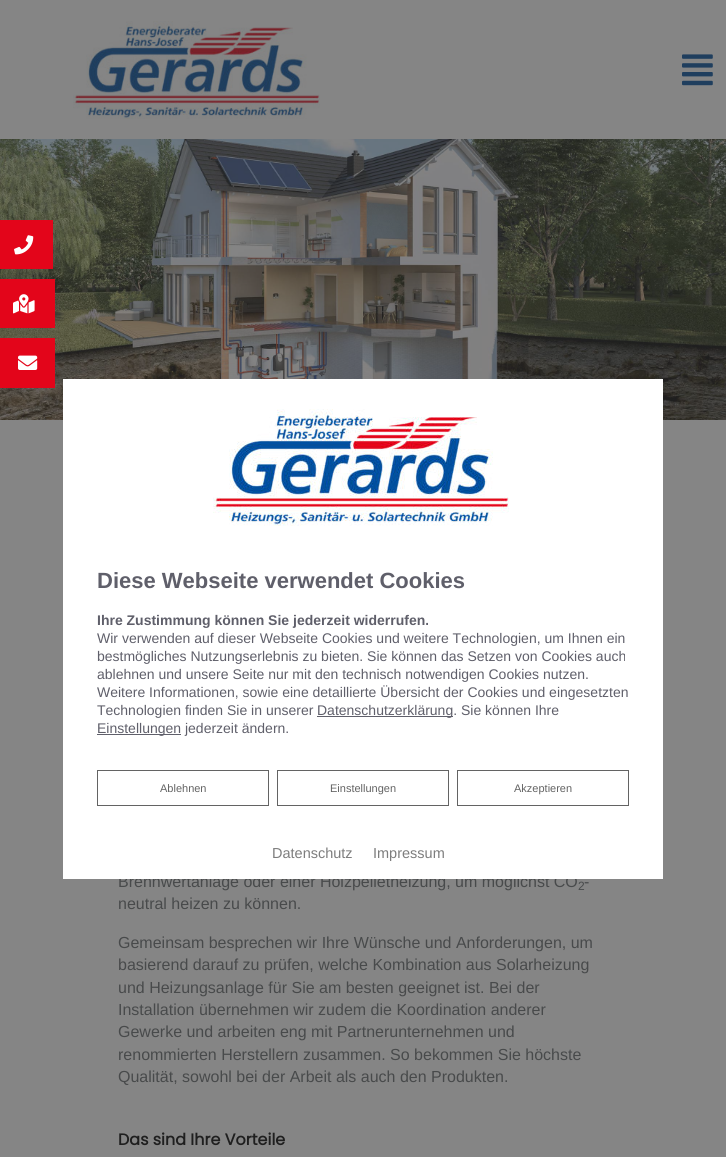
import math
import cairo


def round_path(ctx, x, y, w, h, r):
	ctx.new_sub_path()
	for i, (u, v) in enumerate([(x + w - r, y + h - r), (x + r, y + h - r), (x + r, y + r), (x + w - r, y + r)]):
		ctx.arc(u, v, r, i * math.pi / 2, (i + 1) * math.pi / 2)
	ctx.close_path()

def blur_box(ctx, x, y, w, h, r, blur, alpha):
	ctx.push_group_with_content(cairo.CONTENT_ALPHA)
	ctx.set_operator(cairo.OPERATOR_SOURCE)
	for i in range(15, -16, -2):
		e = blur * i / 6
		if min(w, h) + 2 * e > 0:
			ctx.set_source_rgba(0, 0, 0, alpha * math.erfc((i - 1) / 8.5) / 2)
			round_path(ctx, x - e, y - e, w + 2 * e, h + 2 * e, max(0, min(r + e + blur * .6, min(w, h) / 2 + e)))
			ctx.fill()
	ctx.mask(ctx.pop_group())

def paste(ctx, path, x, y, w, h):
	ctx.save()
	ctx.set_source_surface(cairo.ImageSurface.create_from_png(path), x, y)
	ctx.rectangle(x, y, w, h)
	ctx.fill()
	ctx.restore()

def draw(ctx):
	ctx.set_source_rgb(0.522, 0.522, 0.522)
	ctx.paint()
	paste(ctx, 'media/4.png', 0, 139, 726, 281)
	ctx.set_source_rgb(0.369, 0.369, 0.369)
	blur_box(ctx, 9, 230, 44, 39, 19.5, 7.5, 0.39)
	ctx.set_source_rgb(0.89, 0.02, 0.102)
	ctx.rectangle(0, 220, 53, 49)
	ctx.fill()
	ctx.set_source_rgb(0.369, 0.369, 0.369)
	blur_box(ctx, 8, 289, 47, 39, 19.5, 7.5, 0.39)
	ctx.set_source_rgb(0.89, 0.02, 0.102)
	ctx.rectangle(0, 279, 55, 49)
	ctx.fill()
	ctx.set_source_rgb(0.369, 0.369, 0.369)
	blur_box(ctx, 10, 348, 45, 40, 20, 7.5, 0.39)
	ctx.select_font_face('Liberation Sans')
	ctx.set_font_size(16)
	ctx.set_source_rgb(0.282, 0.29, 0.294)
	ctx.move_to(118, 887)
	ctx.show_text('Brennwertanlage oder einer Holzpelletheizung, um möglichst CO')
	ctx.set_source_rgb(1, 1, 1)
	ctx.rectangle(63, 379, 600, 500)
	ctx.fill()
	paste(ctx, 'media/1.png', 213, 409, 296, 117)
	ctx.select_font_face('Liberation Sans', cairo.FONT_SLANT_NORMAL, cairo.FONT_WEIGHT_BOLD)
	ctx.set_font_size(22)
	ctx.set_source_rgb(0.373, 0.373, 0.416)
	ctx.move_to(97, 588)
	ctx.show_text('Diese Webseite verwendet Cookies')
	ctx.set_font_size(14)
	ctx.move_to(97, 625)
	ctx.show_text('Ihre Zustimmung können Sie jederzeit widerrufen.')
	ctx.select_font_face('Liberation Sans')
	for x, y, s in [
		(97, 643, 'Wir verwenden auf dieser Webseite Cookies und weitere Technologien, um Ihnen ein'),
		(97, 661, 'bestmögliches Nutzungserlebnis zu bieten. Sie können das Setzen von Cookies auch'),
		(97, 679, 'ablehnen und unsere Seite nur mit den technisch notwendigen Cookies nutzen.'),
		(97, 697, 'Weitere Informationen, sowie eine detaillierte Übersicht der Cookies und eingesetzten'),
		(97, 715, 'Technologien finden Sie in unserer'),
	]:
		ctx.move_to(x, y)
		ctx.show_text(s)
	ctx.rectangle(317, 716, 136, 1)
	ctx.fill()
	ctx.move_to(317, 715)
	ctx.show_text('Datenschutzerklärung. Sie können Ihre')
	ctx.rectangle(97, 734, 84, 1)
	ctx.fill()
	ctx.move_to(97, 733)
	ctx.show_text('Einstellungen jederzeit ändern.')
	ctx.rectangle(97.5, 770.5, 171, 35)
	ctx.set_source_rgb(0.388, 0.388, 0.388)
	ctx.set_line_width(1)
	ctx.stroke()
	ctx.set_font_size(11)
	ctx.move_to(160, 792)
	ctx.show_text('Ablehnen')
	ctx.rectangle(277.5, 770.5, 171, 35)
	ctx.stroke()
	ctx.move_to(330, 792)
	ctx.show_text('Einstellungen')
	ctx.rectangle(457.5, 770.5, 171, 35)
	ctx.stroke()
	ctx.move_to(514, 792)
	ctx.show_text('Akzeptieren')
	ctx.set_font_size(14.5)
	ctx.set_source_rgb(0.49, 0.49, 0.49)
	ctx.move_to(272, 858)
	ctx.show_text('Datenschutz')
	ctx.move_to(373, 858)
	ctx.show_text('Impressum')
	paste(ctx, 'media/2.png', 73, 21, 247, 98)
	paste(ctx, 'media/3.png', 682, 54, 31, 32)
	paste(ctx, 'media/5.png', 14, 235, 20, 20)
	paste(ctx, 'media/6.png', 13, 294, 22, 20)
	ctx.set_source_rgb(0.89, 0.02, 0.102)
	ctx.rectangle(0, 338, 55, 50)
	ctx.fill()
	paste(ctx, 'media/7.png', 18, 355, 20, 15)
	ctx.set_font_size(12)
	ctx.set_source_rgb(0.282, 0.29, 0.294)
	ctx.move_to(578, 890)
	ctx.show_text('2')
	ctx.set_font_size(16)
	for x, y, s in [
		(584, 887, '-'),
		(118, 909, 'neutral heizen zu können.'),
		(118, 948, 'Gemeinsam besprechen wir Ihre Wünsche und Anforderungen, um'),
		(118, 970, 'basierend darauf zu prüfen, welche Kombination aus Solarheizung'),
		(118, 993, 'und Heizungsanlage für Sie am besten geeignet ist. Bei der'),
		(118, 1015, 'Installation übernehmen wir zudem die Koordination anderer'),
		(118, 1037, 'Gewerke und arbeiten eng mit Partnerunternehmen und'),
		(118, 1060, 'renommierten Herstellern zusammen. So bekommen Sie höchste'),
		(118, 1082, 'Qualität, sowohl bei der Arbeit als auch den Produkten.'),
	]:
		ctx.move_to(x, y)
		ctx.show_text(s)
	ctx.select_font_face('Poppins', cairo.FONT_SLANT_NORMAL, cairo.FONT_WEIGHT_BOLD)
	ctx.set_source_rgb(0.122, 0.122, 0.122)
	ctx.move_to(118, 1145)
	ctx.show_text('Das sind Ihre Vorteile')


surface = cairo.ImageSurface(cairo.FORMAT_RGB24, 726, 1157)
ctx = cairo.Context(surface)
options = cairo.FontOptions()
options.set_hint_metrics(cairo.HINT_METRICS_OFF)
options.set_hint_style(cairo.HINT_STYLE_NONE)
ctx.set_font_options(options)
ctx.set_miter_limit(4)
draw(ctx)
surface.write_to_png('image.png')
